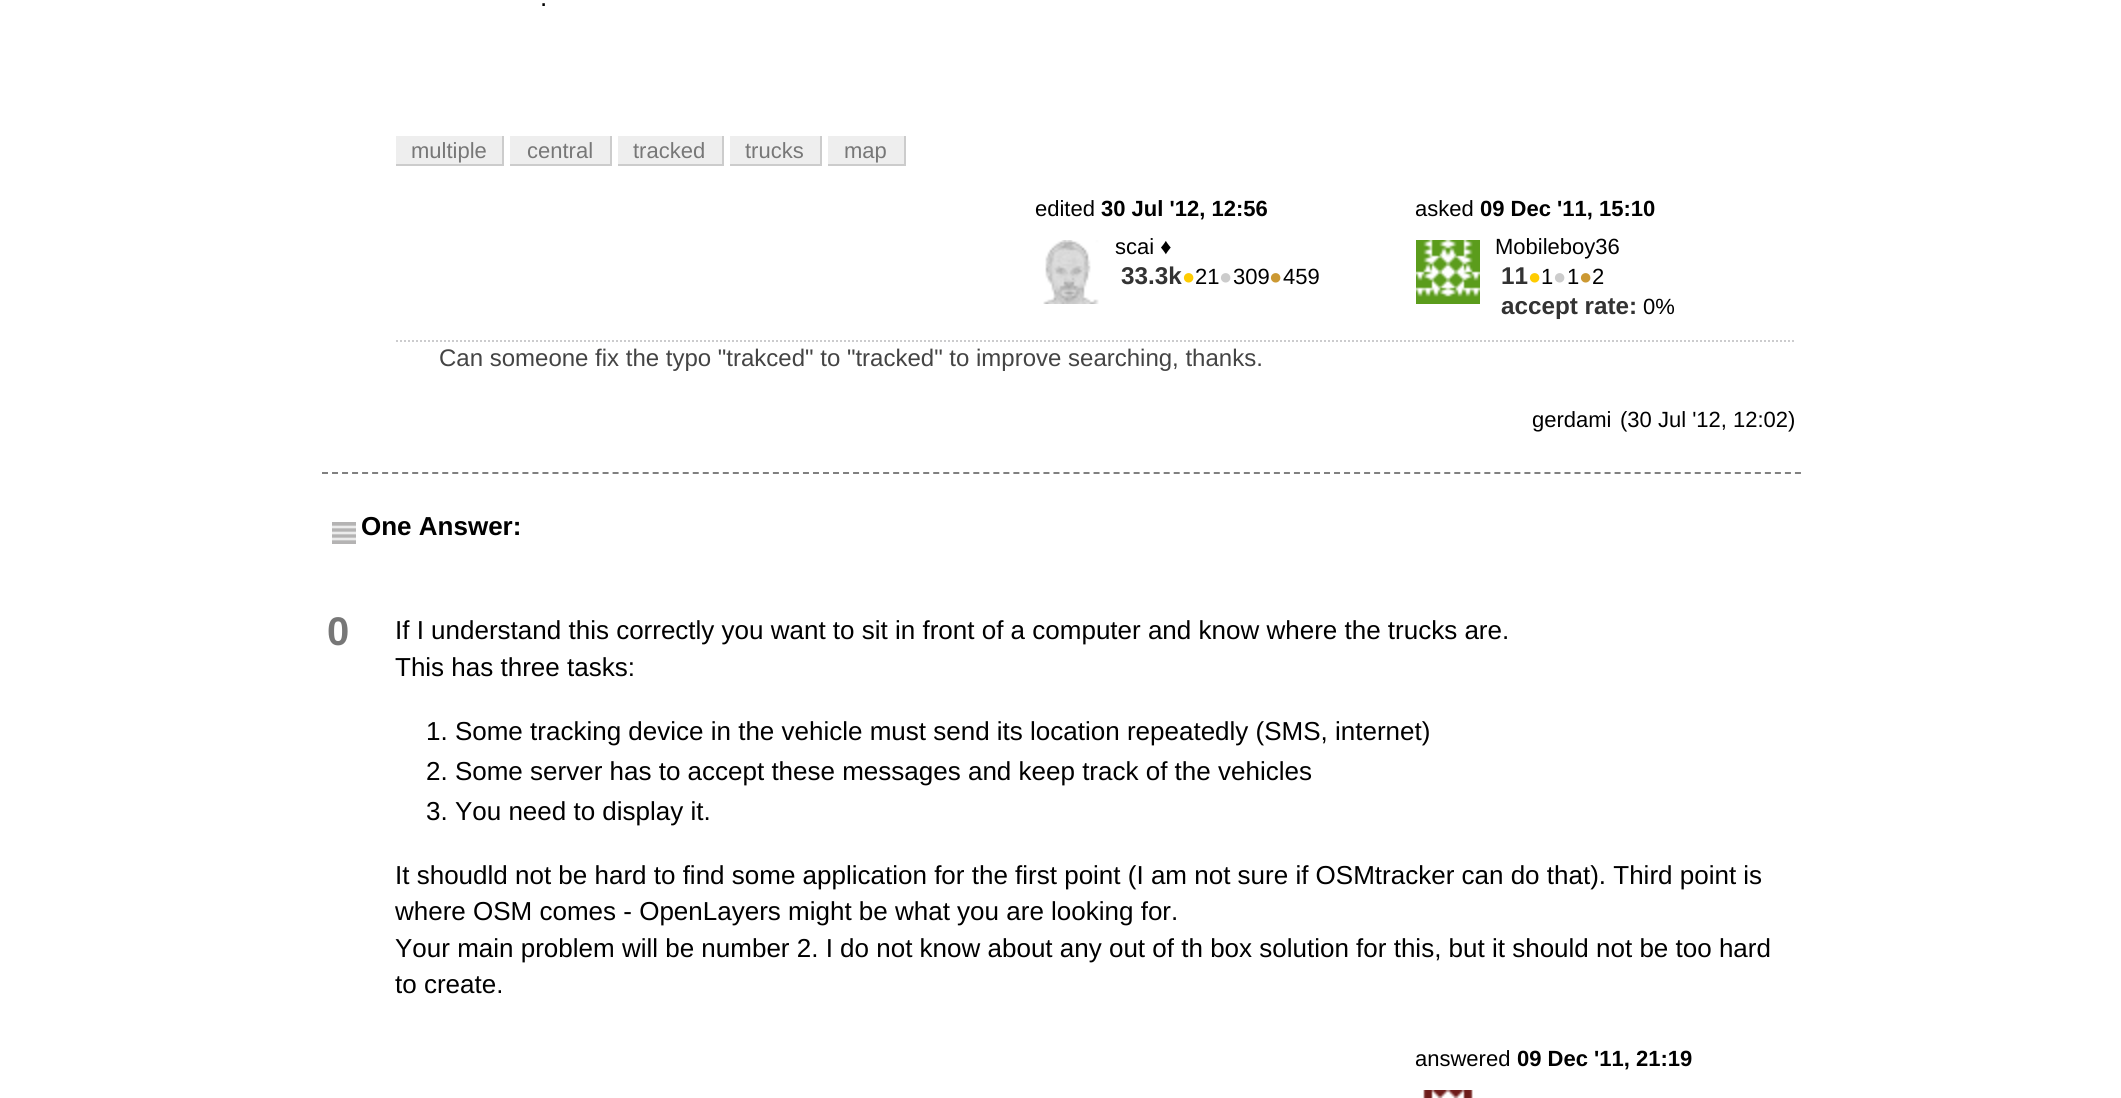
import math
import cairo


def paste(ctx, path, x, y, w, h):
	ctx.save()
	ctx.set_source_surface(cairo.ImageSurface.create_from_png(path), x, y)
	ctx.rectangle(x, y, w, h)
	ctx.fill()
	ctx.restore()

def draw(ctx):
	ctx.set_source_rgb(1, 1, 1)
	ctx.paint()
	ctx.select_font_face('Liberation Sans')
	ctx.set_font_size(26)
	ctx.set_source_rgb(0, 0, 0)
	ctx.move_to(540, 6)
	ctx.show_text('.')
	ctx.set_source_rgb(0.933, 0.933, 0.933)
	ctx.rectangle(396, 136, 106, 28)
	ctx.fill()
	ctx.set_font_size(22)
	ctx.set_source_rgb(0.467, 0.467, 0.467)
	ctx.move_to(411, 158)
	ctx.show_text('multiple')
	ctx.set_source_rgb(0.8, 0.8, 0.8)
	ctx.rectangle(502, 136, 2, 30)
	ctx.rectangle(396, 164, 108, 2)
	ctx.fill()
	ctx.set_source_rgb(0.933, 0.933, 0.933)
	ctx.rectangle(510, 136, 100, 28)
	ctx.fill()
	ctx.set_source_rgb(0.467, 0.467, 0.467)
	ctx.move_to(527, 158)
	ctx.show_text('central')
	ctx.set_source_rgb(0.8, 0.8, 0.8)
	ctx.rectangle(610, 136, 2, 30)
	ctx.rectangle(510, 164, 102, 2)
	ctx.fill()
	ctx.set_source_rgb(0.933, 0.933, 0.933)
	ctx.rectangle(618, 136, 104, 28)
	ctx.fill()
	ctx.set_source_rgb(0.467, 0.467, 0.467)
	ctx.move_to(633, 158)
	ctx.show_text('tracked')
	ctx.set_source_rgb(0.8, 0.8, 0.8)
	ctx.rectangle(722, 136, 2, 30)
	ctx.rectangle(618, 164, 106, 2)
	ctx.fill()
	ctx.set_source_rgb(0.933, 0.933, 0.933)
	ctx.rectangle(730, 136, 90, 28)
	ctx.fill()
	ctx.set_source_rgb(0.467, 0.467, 0.467)
	ctx.move_to(745, 158)
	ctx.show_text('trucks')
	ctx.set_source_rgb(0.8, 0.8, 0.8)
	ctx.rectangle(820, 136, 2, 30)
	ctx.rectangle(730, 164, 92, 2)
	ctx.fill()
	ctx.set_source_rgb(0.933, 0.933, 0.933)
	ctx.rectangle(828, 136, 76, 28)
	ctx.fill()
	ctx.set_source_rgb(0.467, 0.467, 0.467)
	ctx.move_to(844, 158)
	ctx.show_text('map')
	ctx.set_source_rgb(0.8, 0.8, 0.8)
	ctx.rectangle(904, 136, 2, 30)
	ctx.fill()
	ctx.rectangle(828, 164, 78, 2)
	ctx.fill()
	ctx.set_source_rgb(0, 0, 0)
	ctx.move_to(1035, 216)
	ctx.show_text('edited')
	ctx.select_font_face('Liberation Sans', cairo.FONT_SLANT_NORMAL, cairo.FONT_WEIGHT_BOLD)
	ctx.move_to(1101, 216)
	ctx.show_text('30 Jul \'12, 12:56')
	paste(ctx, 'media/1.png', 1043, 240, 56, 64)
	ctx.select_font_face('Liberation Sans')
	ctx.move_to(1115, 254)
	ctx.show_text('scai ♦')
	ctx.select_font_face('Liberation Sans', cairo.FONT_SLANT_NORMAL, cairo.FONT_WEIGHT_BOLD)
	ctx.set_font_size(24.25)
	ctx.set_source_rgb(0.2, 0.2, 0.2)
	ctx.move_to(1121, 284)
	ctx.show_text('33.3k')
	ctx.select_font_face('Liberation Sans')
	ctx.set_font_size(22)
	ctx.set_source_rgb(1, 0.8, 0)
	ctx.move_to(1182, 284)
	ctx.show_text('●')
	ctx.set_source_rgb(0, 0, 0)
	ctx.move_to(1195, 284)
	ctx.show_text('21')
	ctx.set_source_rgb(0.8, 0.8, 0.8)
	ctx.move_to(1219, 284)
	ctx.show_text('●')
	ctx.set_source_rgb(0, 0, 0)
	ctx.move_to(1233, 284)
	ctx.show_text('309')
	ctx.set_source_rgb(0.8, 0.6, 0.2)
	ctx.move_to(1269, 284)
	ctx.show_text('●')
	ctx.set_source_rgb(0, 0, 0)
	ctx.move_to(1283, 284)
	ctx.show_text('459')
	ctx.move_to(1415, 216)
	ctx.show_text('asked')
	ctx.select_font_face('Liberation Sans', cairo.FONT_SLANT_NORMAL, cairo.FONT_WEIGHT_BOLD)
	ctx.move_to(1480, 216)
	ctx.show_text('09 Dec \'11, 15:10')
	paste(ctx, 'media/2.png', 1416, 240, 64, 64)
	ctx.select_font_face('Liberation Sans')
	ctx.move_to(1495, 254)
	ctx.show_text('Mobileboy36')
	ctx.select_font_face('Liberation Sans', cairo.FONT_SLANT_NORMAL, cairo.FONT_WEIGHT_BOLD)
	ctx.set_font_size(24.25)
	ctx.set_source_rgb(0.2, 0.2, 0.2)
	ctx.move_to(1501, 284)
	ctx.show_text('11')
	ctx.select_font_face('Liberation Sans')
	ctx.set_font_size(22)
	ctx.set_source_rgb(1, 0.8, 0)
	ctx.move_to(1528, 284)
	ctx.show_text('●')
	ctx.set_source_rgb(0, 0, 0)
	ctx.move_to(1541, 284)
	ctx.show_text('1')
	ctx.set_source_rgb(0.8, 0.8, 0.8)
	ctx.move_to(1553, 284)
	ctx.show_text('●')
	ctx.set_source_rgb(0, 0, 0)
	ctx.move_to(1567, 284)
	ctx.show_text('1')
	ctx.set_source_rgb(0.8, 0.6, 0.2)
	ctx.move_to(1579, 284)
	ctx.show_text('●')
	ctx.set_source_rgb(0, 0, 0)
	ctx.move_to(1592, 284)
	ctx.show_text('2')
	ctx.select_font_face('Liberation Sans', cairo.FONT_SLANT_NORMAL, cairo.FONT_WEIGHT_BOLD)
	ctx.set_font_size(24.25)
	ctx.set_source_rgb(0.2, 0.2, 0.2)
	ctx.move_to(1501, 314)
	ctx.show_text('accept rate:')
	ctx.select_font_face('Liberation Sans')
	ctx.set_font_size(22)
	ctx.set_source_rgb(0, 0, 0)
	ctx.move_to(1643, 314)
	ctx.show_text('0%')
	ctx.new_path()
	ctx.move_to(396, 341)
	ctx.line_to(1796, 341)
	ctx.set_source_rgb(0.8, 0.8, 0.808)
	ctx.set_dash([2, 2])
	ctx.stroke()
	ctx.set_font_size(24)
	ctx.set_source_rgb(0.267, 0.267, 0.267)
	ctx.move_to(439, 366)
	ctx.show_text('Can someone fix the typo "trakced" to "tracked" to improve searching, thanks.')
	ctx.set_font_size(22)
	ctx.set_source_rgb(0, 0, 0)
	ctx.move_to(1532, 427)
	ctx.show_text('gerdami')
	ctx.move_to(1620, 427)
	ctx.show_text('(30 Jul \'12, 12:02)')
	ctx.new_path()
	ctx.move_to(322, 473)
	ctx.line_to(1802, 473)
	ctx.set_source_rgb(0.502, 0.502, 0.502)
	ctx.set_dash([6, 4.02])
	ctx.stroke()
	paste(ctx, 'media/3.png', 332, 522, 24, 22)
	ctx.select_font_face('Liberation Sans', cairo.FONT_SLANT_NORMAL, cairo.FONT_WEIGHT_BOLD)
	ctx.set_font_size(26)
	ctx.set_source_rgb(0, 0, 0)
	ctx.move_to(361, 535)
	ctx.show_text('One Answer:')
	ctx.set_font_size(40)
	ctx.set_source_rgb(0.467, 0.467, 0.467)
	ctx.move_to(327, 645)
	ctx.show_text('0')
	ctx.select_font_face('Liberation Sans')
	ctx.set_font_size(26)
	ctx.set_source_rgb(0, 0, 0)
	for x, y, s in [
		(395, 639, 'If I understand this correctly you want to sit in front of a computer and know where the trucks are.'),
		(395, 676, 'This has three tasks:'),
		(426, 740, '1. Some tracking device in the vehicle must send its location repeatedly (SMS, internet)'),
		(426, 780, '2. Some server has to accept these messages and keep track of the vehicles'),
		(426, 820, '3. You need to display it.'),
		(395, 884, 'It shoudld not be hard to find some application for the first point (I am not sure if OSMtracker can do that). Third point is'),
		(395, 920, 'where OSM comes - OpenLayers might be what you are looking for.'),
		(395, 957, 'Your main problem will be number 2. I do not know about any out of th box solution for this, but it should not be too hard'),
		(395, 993, 'to create.'),
	]:
		ctx.move_to(x, y)
		ctx.show_text(s)
	ctx.set_font_size(22)
	ctx.move_to(1415, 1066)
	ctx.show_text('answered')
	ctx.select_font_face('Liberation Sans', cairo.FONT_SLANT_NORMAL, cairo.FONT_WEIGHT_BOLD)
	ctx.move_to(1517, 1066)
	ctx.show_text('09 Dec \'11, 21:19')
	paste(ctx, 'media/4.png', 1423, 1090, 50, 8)


surface = cairo.ImageSurface(cairo.FORMAT_RGB24, 2121, 1098)
ctx = cairo.Context(surface)
options = cairo.FontOptions()
options.set_hint_metrics(cairo.HINT_METRICS_OFF)
options.set_hint_style(cairo.HINT_STYLE_NONE)
ctx.set_font_options(options)
ctx.set_miter_limit(4)
draw(ctx)
surface.write_to_png('image.png')
